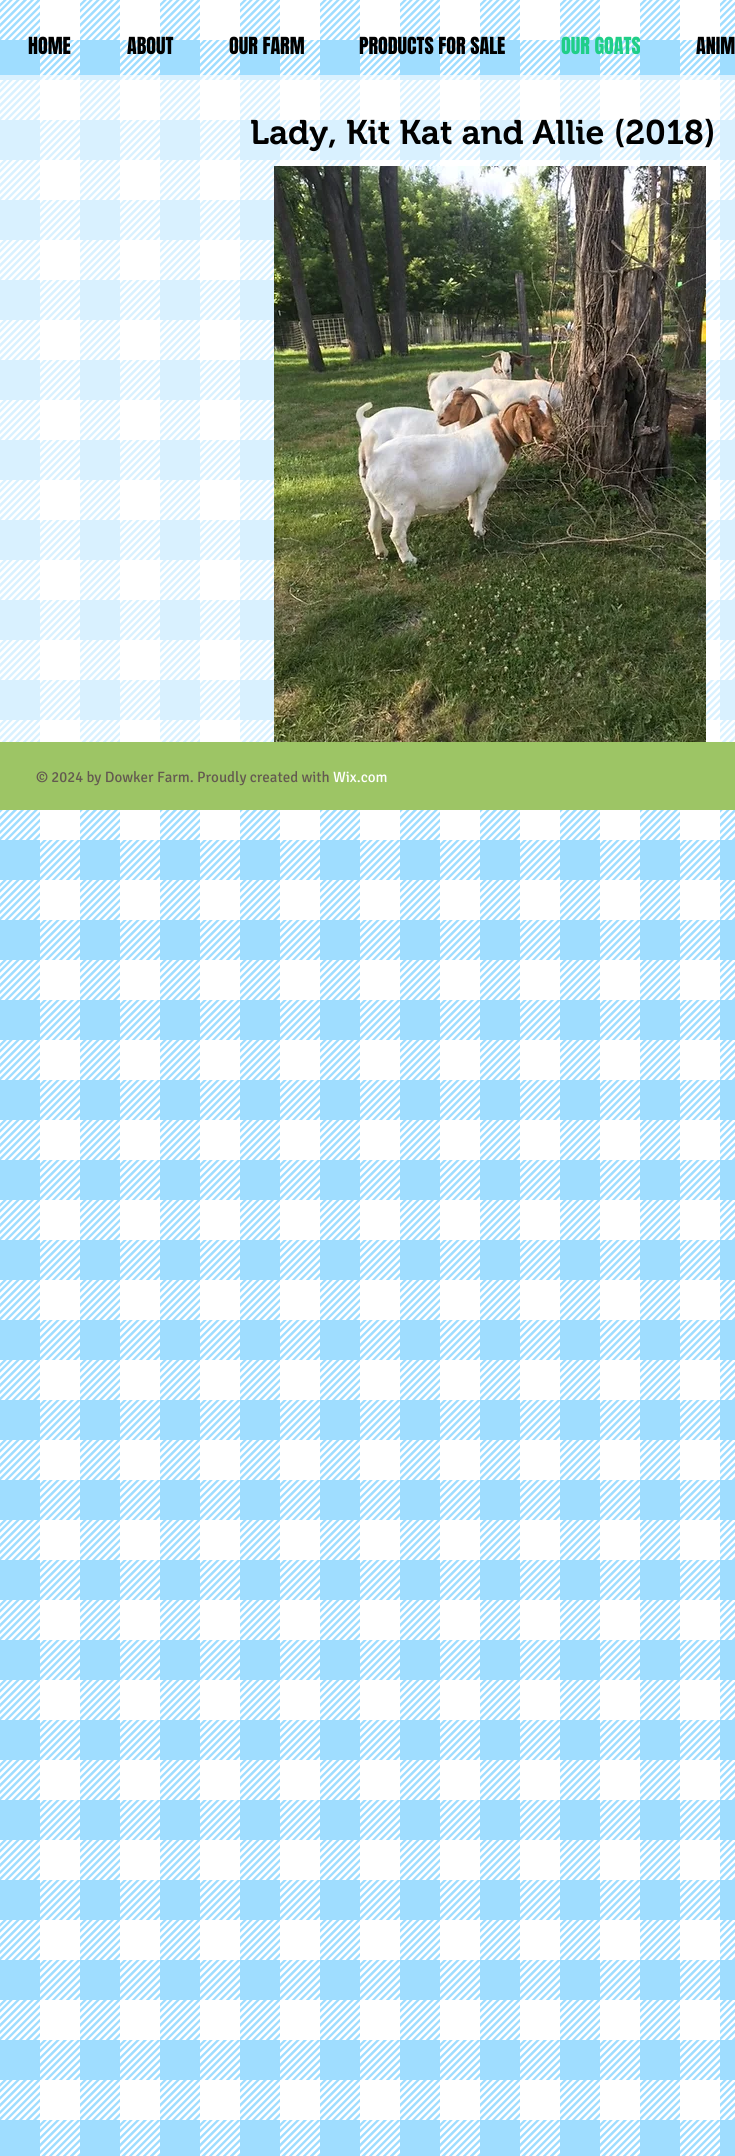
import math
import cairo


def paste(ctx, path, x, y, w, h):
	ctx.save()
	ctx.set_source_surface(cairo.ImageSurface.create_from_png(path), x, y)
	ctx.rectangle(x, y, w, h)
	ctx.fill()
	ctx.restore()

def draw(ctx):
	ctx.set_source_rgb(1, 1, 1)
	ctx.paint()
	paste(ctx, 'media/1.png', 0, 0, 735, 2156)
	ctx.select_font_face('Anton')
	ctx.set_font_size(20)
	ctx.set_source_rgb(0, 0, 0)
	for x, y, s in [
		(28, 54, 'HOME'),
		(127, 54, 'ABOUT'),
		(229, 54, 'OUR FARM'),
		(359, 54, 'PRODUCTS FOR SALE'),
	]:
		ctx.move_to(x, y)
		ctx.show_text(s)
	ctx.set_source_rgb(0.125, 0.808, 0.533)
	ctx.move_to(561, 54)
	ctx.show_text('OUR GOATS')
	ctx.set_source_rgb(0, 0, 0)
	ctx.move_to(696, 54)
	ctx.show_text('ANIM')
	ctx.set_source_rgba(1, 1, 1, 0.6)
	ctx.rectangle(0, 75, 735, 667)
	ctx.fill()
	ctx.select_font_face('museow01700 SemiBold')
	ctx.set_font_size(34)
	ctx.set_source_rgb(0, 0, 0)
	ctx.move_to(250, 144)
	ctx.show_text('Lady, Kit Kat and Allie (2018)')
	paste(ctx, 'media/2.png', 274, 166, 432, 576)
	ctx.set_source_rgb(0.616, 0.773, 0.396)
	ctx.rectangle(0, 742, 735, 68)
	ctx.fill()
	ctx.select_font_face('Signika')
	ctx.set_font_size(15)
	ctx.set_source_rgb(0.388, 0.353, 0.314)
	ctx.move_to(36, 782)
	ctx.show_text('© 2024 by Dowker Farm. Proudly created with')
	ctx.set_source_rgb(1, 1, 1)
	ctx.move_to(333, 782)
	ctx.show_text('Wix.com')


surface = cairo.ImageSurface(cairo.FORMAT_RGB24, 735, 2156)
ctx = cairo.Context(surface)
options = cairo.FontOptions()
options.set_hint_metrics(cairo.HINT_METRICS_OFF)
options.set_hint_style(cairo.HINT_STYLE_NONE)
ctx.set_font_options(options)
ctx.set_miter_limit(4)
draw(ctx)
surface.write_to_png('image.png')
